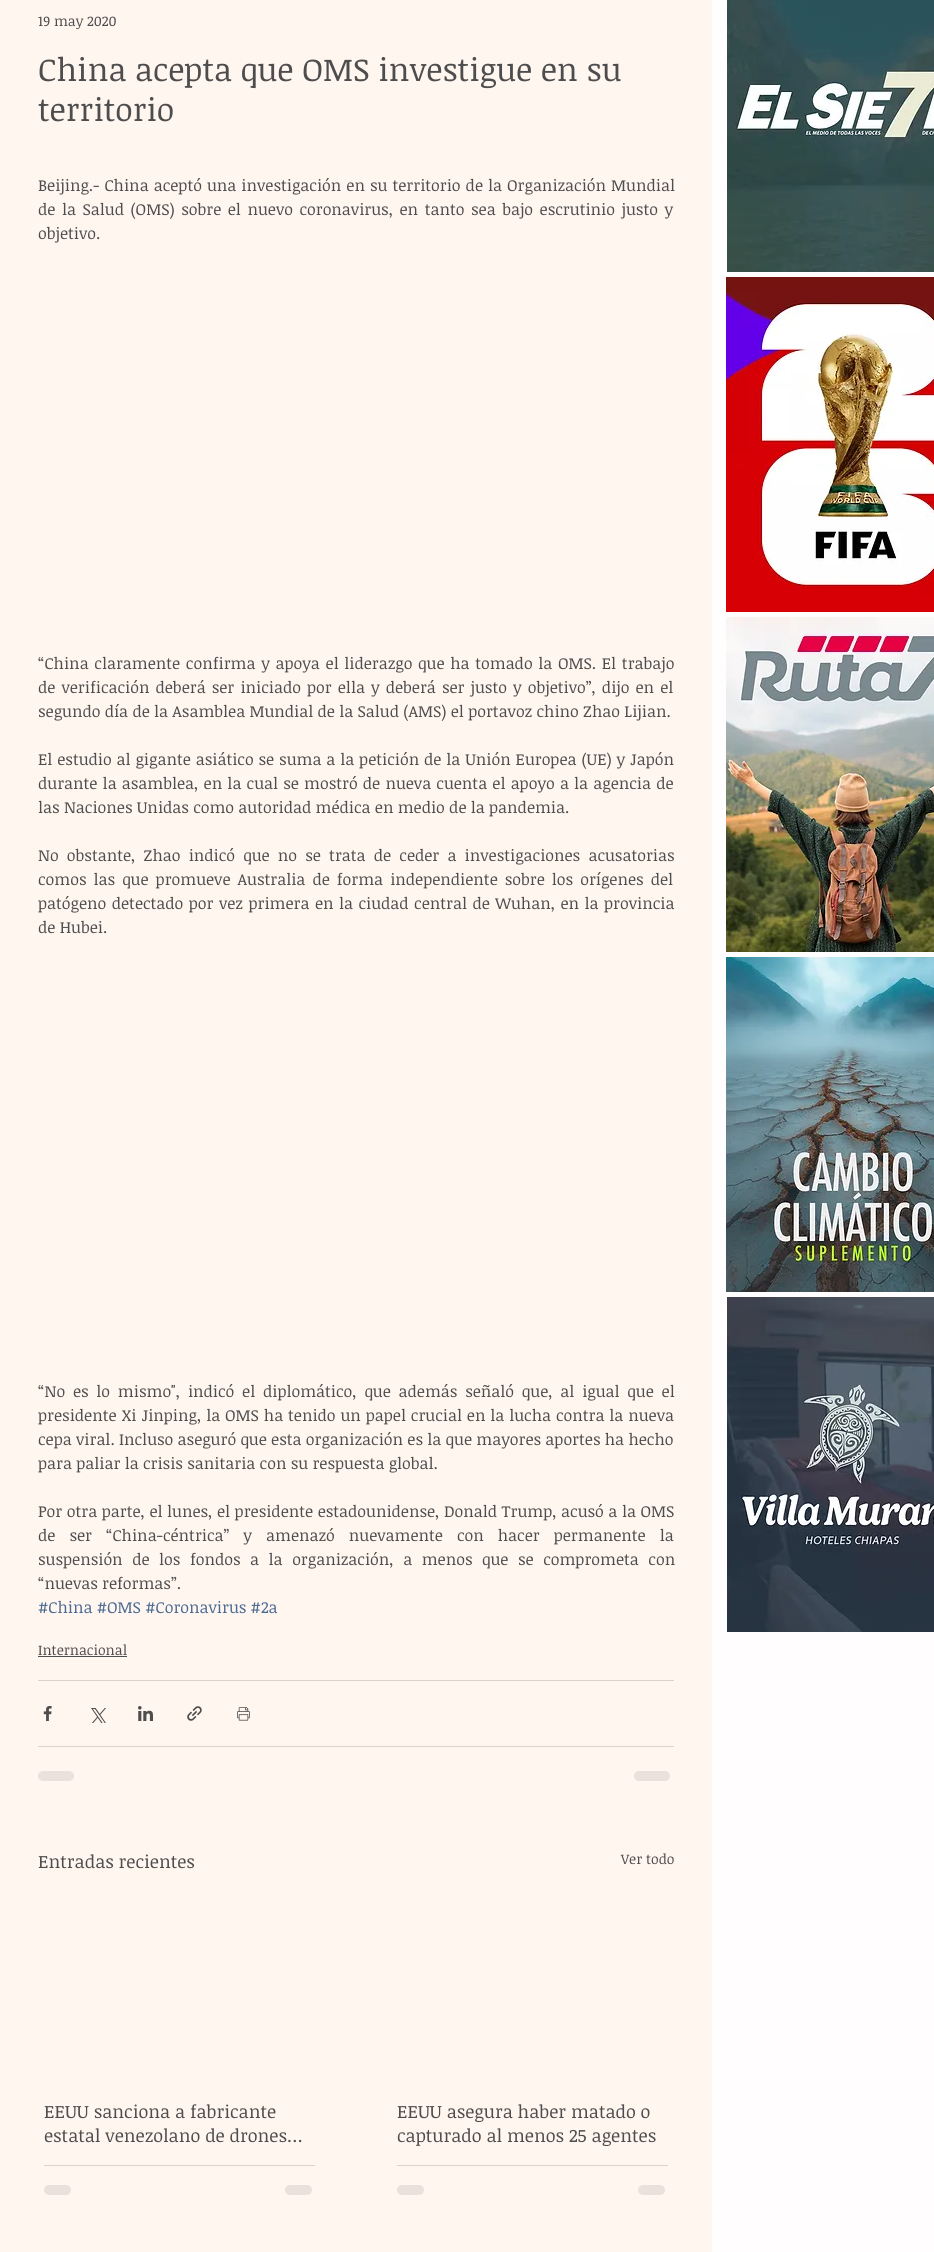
import math
import cairo


def write_spaced(ctx, x, y, s, letter, word):
	ctx.move_to(x, y)
	for ch in s:
		ctx.show_text(ch)
		ctx.rel_move_to(letter + word * (ch == ' '), 0)

def round_path(ctx, x, y, w, h, r):
	ctx.new_sub_path()
	for i, (u, v) in enumerate([(x + w - r, y + h - r), (x + r, y + h - r), (x + r, y + r), (x + w - r, y + r)]):
		ctx.arc(u, v, r, i * math.pi / 2, (i + 1) * math.pi / 2)
	ctx.close_path()

def paste(ctx, path, x, y, w, h):
	ctx.save()
	ctx.set_source_surface(cairo.ImageSurface.create_from_png(path), x, y)
	ctx.rectangle(x, y, w, h)
	ctx.fill()
	ctx.restore()

def draw(ctx):
	ctx.set_source_rgb(1, 0.992, 0.992)
	ctx.paint()
	ctx.set_source_rgb(1, 0.961, 0.941)
	ctx.rectangle(0, 0, 712, 2252)
	ctx.fill()
	ctx.select_font_face('Noticia Text')
	ctx.set_font_size(14)
	ctx.set_source_rgb(0.306, 0.302, 0.302)
	ctx.move_to(38, 26)
	ctx.show_text('19 may 2020')
	ctx.set_font_size(32)
	ctx.move_to(38, 81)
	ctx.show_text('China acepta que OMS investigue en su')
	ctx.move_to(38, 121)
	ctx.show_text('territorio')
	ctx.set_font_size(16)
	write_spaced(ctx, 38, 191, 'Beijing.- China aceptó una investigación en su territorio de la Organización Mundial', 0, 0.75)
	write_spaced(ctx, 38, 215, 'de la Salud (OMS) sobre el nuevo coronavirus, en tanto sea bajo escrutinio justo y', 0, 2.25)
	ctx.move_to(38, 239)
	ctx.show_text('objetivo.')
	write_spaced(ctx, 38, 669, '“China claramente confirma y apoya el liderazgo que ha tomado la OMS. El trabajo', 0, 1.4)
	write_spaced(ctx, 38, 693, 'de verificación deberá ser iniciado por ella y deberá ser justo y objetivo”, dijo en el', 0, 1.8)
	ctx.move_to(38, 717)
	ctx.show_text('segundo día de la Asamblea Mundial de la Salud (AMS) el portavoz chino Zhao Lijian.')
	write_spaced(ctx, 38, 765, 'El estudio al gigante asiático se suma a la petición de la Unión Europea (UE) y Japón', 0, 0.6)
	write_spaced(ctx, 38, 789, 'durante la asamblea, en la cual se mostró de nueva cuenta el apoyo a la agencia de', 0, 0.9)
	ctx.move_to(38, 813)
	ctx.show_text('las Naciones Unidas como autoridad médica en medio de la pandemia.')
	write_spaced(ctx, 38, 861, 'No obstante, Zhao indicó que no se trata de ceder a investigaciones acusatorias', 0, 3.9)
	write_spaced(ctx, 38, 885, 'comos las que promueve Australia de forma independiente sobre los orígenes del', 0, 2.75)
	write_spaced(ctx, 38, 909, 'patógeno detectado por vez primera en la ciudad central de Wuhan, en la provincia', 0, 1.2)
	ctx.move_to(38, 933)
	ctx.show_text('de Hubei.')
	write_spaced(ctx, 38, 1397, '“No es lo mismo", indicó el diplomático, que además señaló que, al igual que el', 0, 3.5)
	write_spaced(ctx, 38, 1421, 'presidente Xi Jinping, la OMS ha tenido un papel crucial en la lucha contra la nueva', 0, 0.6)
	ctx.move_to(38, 1445)
	ctx.show_text('cepa viral. Incluso aseguró que esta organización es la que mayores aportes ha hecho')
	ctx.move_to(38, 1469)
	ctx.show_text('para paliar la crisis sanitaria con su respuesta global.')
	write_spaced(ctx, 38, 1517, 'Por otra parte, el lunes, el presidente estadounidense, Donald Trump, acusó a la OMS', 0, 0.25)
	write_spaced(ctx, 38, 1541, 'de ser “China-céntrica” y amenazó nuevamente con hacer permanente la', 0, 9.75)
	write_spaced(ctx, 38, 1565, 'suspensión de los fondos a la organización, a menos que se comprometa con', 0, 5.25)
	ctx.move_to(38, 1589)
	ctx.show_text('“nuevas reformas”.')
	ctx.set_source_rgb(0.29, 0.412, 0.569)
	ctx.move_to(38, 1613)
	ctx.show_text('#China #OMS #Coronavirus #2a')
	ctx.set_font_size(14)
	ctx.set_source_rgb(0.306, 0.302, 0.302)
	ctx.move_to(38, 1655)
	ctx.show_text('Internacional')
	ctx.rectangle(38, 1656, 89, 1)
	ctx.fill()
	ctx.set_source_rgb(0.863, 0.827, 0.812)
	ctx.rectangle(38, 1680, 636, 1)
	ctx.fill()
	paste(ctx, 'media/1.png', 43, 1706, 9, 15)
	paste(ctx, 'media/2.png', 91, 1708, 15, 15)
	paste(ctx, 'media/3.png', 138, 1706, 15, 15)
	paste(ctx, 'media/4.png', 187, 1706, 15, 15)
	paste(ctx, 'media/5.png', 237, 1707, 13, 14)
	ctx.rectangle(38, 1746, 636, 1)
	ctx.fill()
	ctx.set_source_rgb(0.918, 0.882, 0.863)
	round_path(ctx, 38, 1771, 36, 10, 5)
	ctx.fill()
	round_path(ctx, 634, 1771, 36, 10, 5)
	ctx.fill()
	ctx.set_font_size(18)
	ctx.set_source_rgb(0.306, 0.302, 0.302)
	ctx.move_to(38, 1868)
	ctx.show_text('Entradas recientes')
	ctx.set_font_size(14)
	ctx.move_to(621, 1864)
	ctx.show_text('Ver todo')
	ctx.set_font_size(18)
	ctx.move_to(44, 2118)
	ctx.show_text('EEUU sanciona a fabricante')
	ctx.move_to(44, 2142)
	ctx.show_text('estatal venezolano de drones…')
	ctx.set_source_rgb(0.863, 0.827, 0.812)
	ctx.rectangle(44, 2165, 271, 1)
	ctx.fill()
	ctx.set_source_rgb(0.918, 0.882, 0.863)
	round_path(ctx, 44, 2185, 27, 10, 5)
	ctx.fill()
	round_path(ctx, 285, 2185, 27, 10, 5)
	ctx.fill()
	ctx.set_source_rgb(0.306, 0.302, 0.302)
	ctx.move_to(397, 2118)
	ctx.show_text('EEUU asegura haber matado o')
	ctx.move_to(397, 2142)
	ctx.show_text('capturado al menos 25 agentes')
	ctx.set_source_rgb(0.863, 0.827, 0.812)
	ctx.rectangle(397, 2165, 271, 1)
	ctx.fill()
	ctx.set_source_rgb(0.918, 0.882, 0.863)
	round_path(ctx, 397, 2185, 27, 10, 5)
	ctx.fill()
	round_path(ctx, 638, 2185, 27, 10, 5)
	ctx.fill()
	paste(ctx, 'media/6.png', 727, 0, 207, 272)
	paste(ctx, 'media/7.png', 726, 277, 208, 335)
	paste(ctx, 'media/8.png', 726, 617, 208, 335)
	paste(ctx, 'media/9.png', 726, 957, 208, 335)
	paste(ctx, 'media/10.png', 727, 1297, 207, 335)


surface = cairo.ImageSurface(cairo.FORMAT_RGB24, 934, 2252)
ctx = cairo.Context(surface)
options = cairo.FontOptions()
options.set_hint_metrics(cairo.HINT_METRICS_OFF)
options.set_hint_style(cairo.HINT_STYLE_NONE)
ctx.set_font_options(options)
ctx.set_miter_limit(4)
draw(ctx)
surface.write_to_png('image.png')
